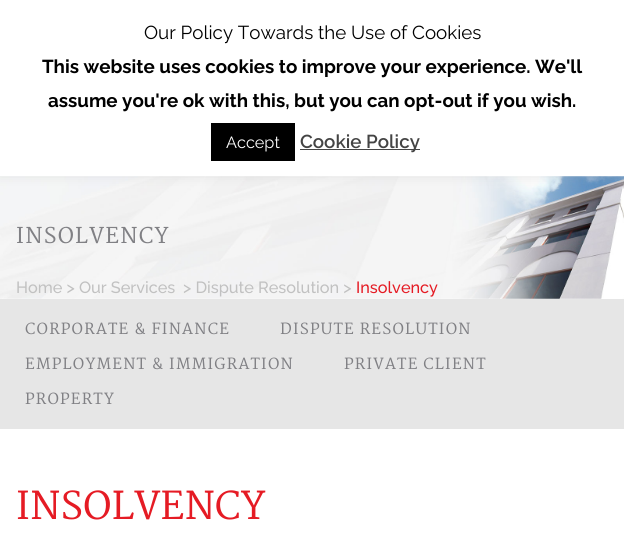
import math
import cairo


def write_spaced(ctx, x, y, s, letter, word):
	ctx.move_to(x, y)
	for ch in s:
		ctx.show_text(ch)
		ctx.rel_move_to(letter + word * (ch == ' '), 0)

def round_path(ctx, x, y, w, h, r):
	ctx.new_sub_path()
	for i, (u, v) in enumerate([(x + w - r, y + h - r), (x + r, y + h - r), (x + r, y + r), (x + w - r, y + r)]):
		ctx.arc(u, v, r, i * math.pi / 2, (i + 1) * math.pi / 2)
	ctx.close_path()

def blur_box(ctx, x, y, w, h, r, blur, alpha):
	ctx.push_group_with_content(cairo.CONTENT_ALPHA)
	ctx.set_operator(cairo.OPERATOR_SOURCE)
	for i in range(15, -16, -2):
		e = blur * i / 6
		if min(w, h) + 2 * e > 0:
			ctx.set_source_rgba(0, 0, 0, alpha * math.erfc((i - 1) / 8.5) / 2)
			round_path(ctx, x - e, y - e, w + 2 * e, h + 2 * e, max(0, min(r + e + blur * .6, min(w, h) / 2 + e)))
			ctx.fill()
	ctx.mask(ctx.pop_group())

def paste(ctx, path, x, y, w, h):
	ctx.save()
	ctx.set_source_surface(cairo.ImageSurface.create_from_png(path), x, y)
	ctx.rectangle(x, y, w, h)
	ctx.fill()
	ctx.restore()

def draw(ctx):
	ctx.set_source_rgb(1, 1, 1)
	ctx.paint()
	paste(ctx, 'media/1.png', 0, 176, 624, 123)
	ctx.set_source_rgb(0.675, 0.671, 0.671)
	blur_box(ctx, 0, -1, 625, 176, 0, 6, 0.3)
	ctx.set_source_rgb(1, 1, 1)
	ctx.rectangle(0, 0, 624, 176)
	ctx.fill()
	ctx.select_font_face('Raleway')
	ctx.set_font_size(18.75)
	ctx.set_source_rgb(0, 0, 0)
	ctx.move_to(144, 39)
	ctx.show_text('Our Policy Towards the Use of Cookies')
	ctx.select_font_face('Raleway', cairo.FONT_SLANT_NORMAL, cairo.FONT_WEIGHT_BOLD)
	ctx.move_to(42, 73)
	ctx.show_text('This website uses cookies to improve your experience. We\'ll')
	ctx.move_to(48, 107)
	ctx.show_text('assume you\'re ok with this, but you can opt-out if you wish.')
	ctx.rectangle(211, 123, 84, 38)
	ctx.fill()
	ctx.select_font_face('Raleway')
	ctx.set_font_size(16.25)
	ctx.set_source_rgb(1, 1, 1)
	ctx.move_to(226, 148)
	ctx.show_text('Accept')
	ctx.set_source_rgb(0.267, 0.267, 0.267)
	ctx.rectangle(300, 149, 120, 1)
	ctx.fill()
	ctx.select_font_face('Raleway SemiBold')
	ctx.set_font_size(18.75)
	ctx.move_to(300, 148)
	ctx.show_text('Cookie Policy')
	ctx.select_font_face('Martel SemiBold')
	ctx.set_font_size(21.25)
	ctx.set_source_rgb(0.502, 0.502, 0.518)
	write_spaced(ctx, 16, 243, 'INSOLVENCY', 1.25, 0)
	ctx.select_font_face('Raleway Medium')
	ctx.set_font_size(16.25)
	ctx.set_source_rgb(0.757, 0.757, 0.757)
	ctx.move_to(16, 293)
	ctx.show_text('Home > Our Services')
	ctx.move_to(183, 293)
	ctx.show_text('> Dispute Resolution >')
	ctx.set_source_rgb(0.898, 0.106, 0.141)
	ctx.move_to(356, 293)
	ctx.show_text('Insolvency')
	ctx.set_source_rgb(0.902, 0.902, 0.902)
	ctx.rectangle(0, 299, 624, 130)
	ctx.fill()
	ctx.select_font_face('Martel SemiBold')
	ctx.set_font_size(15)
	ctx.set_source_rgb(0.502, 0.502, 0.518)
	for x, y, s in [
		(25, 334, 'CORPORATE & FINANCE'),
		(280, 334, 'DISPUTE RESOLUTION'),
		(25, 369, 'EMPLOYMENT & IMMIGRATION'),
		(344, 369, 'PRIVATE CLIENT'),
		(25, 404, 'PROPERTY'),
	]:
		write_spaced(ctx, x, y, s, 1.25, 0)
	ctx.set_font_size(37.5)
	ctx.set_source_rgb(0.898, 0.106, 0.141)
	ctx.move_to(16, 519)
	ctx.show_text('INSOLVENCY')


surface = cairo.ImageSurface(cairo.FORMAT_RGB24, 624, 560)
ctx = cairo.Context(surface)
options = cairo.FontOptions()
options.set_hint_metrics(cairo.HINT_METRICS_OFF)
options.set_hint_style(cairo.HINT_STYLE_NONE)
ctx.set_font_options(options)
ctx.set_miter_limit(4)
draw(ctx)
surface.write_to_png('image.png')
